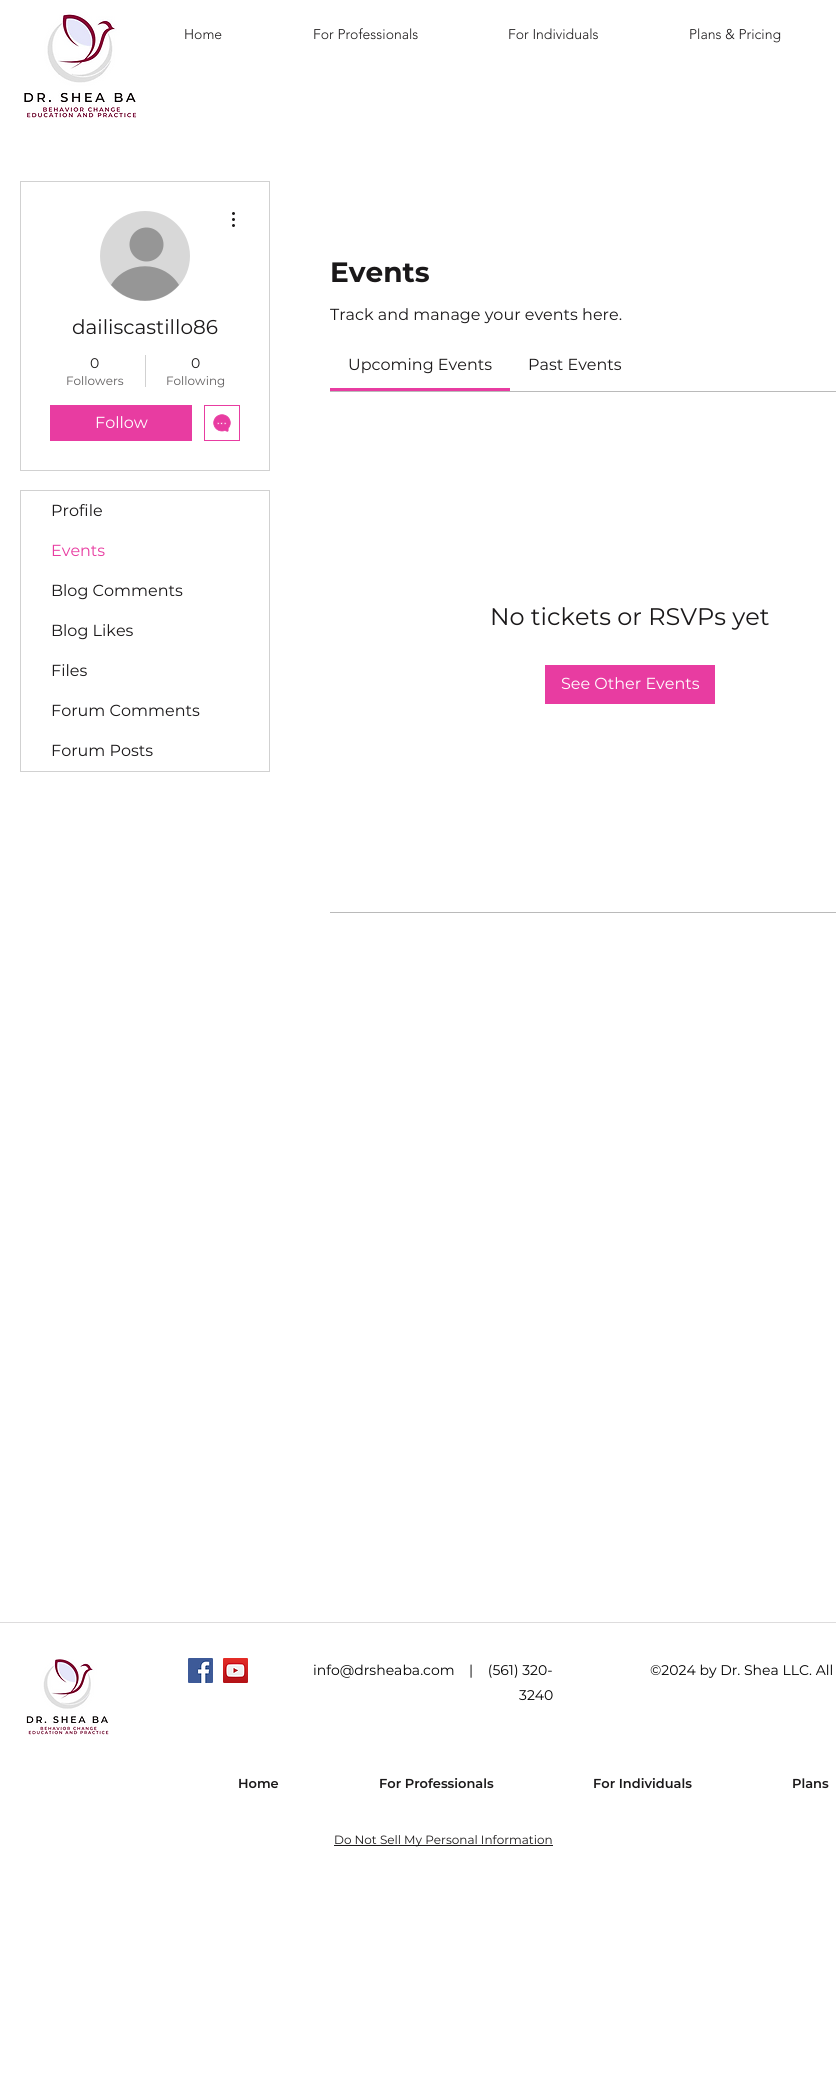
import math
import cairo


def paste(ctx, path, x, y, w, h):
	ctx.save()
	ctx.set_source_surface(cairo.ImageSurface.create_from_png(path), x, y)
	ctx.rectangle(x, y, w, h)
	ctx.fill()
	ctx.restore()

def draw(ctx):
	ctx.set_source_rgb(1, 1, 1)
	ctx.paint()
	paste(ctx, 'media/1.png', 24, 12, 113, 107)
	ctx.select_font_face('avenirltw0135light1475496 Light')
	ctx.set_font_size(14)
	ctx.set_source_rgb(0.102, 0.094, 0.098)
	for x, y, s in [
		(184, 39, 'Home'),
		(313, 39, 'For Professionals'),
		(508, 39, 'For Individuals'),
		(689, 39, 'Plans & Pricing'),
	]:
		ctx.move_to(x, y)
		ctx.show_text(s)
	ctx.rectangle(20.5, 181.5, 249, 289)
	ctx.set_source_rgb(0.82, 0.82, 0.82)
	ctx.set_line_width(1)
	ctx.stroke()
	ctx.set_source_rgb(0.847, 0.847, 0.847)
	ctx.arc(145, 256, 45, 0, 2 * math.pi)
	ctx.fill()
	ctx.set_source_rgb(0.588, 0.588, 0.588)
	ctx.arc(146.5, 244.5, 17, 0, 2 * math.pi)
	ctx.fill()
	ctx.new_path()
	ctx.move_to(179, 285)
	ctx.curve_to(161, 306, 129, 306, 111, 285)
	ctx.curve_to(126, 260, 164, 260, 179, 285)
	ctx.close_path()
	ctx.fill()
	paste(ctx, 'media/2.png', 232, 212, 3, 15)
	ctx.select_font_face('Montserrat')
	ctx.set_font_size(20)
	ctx.set_source_rgb(0.102, 0.094, 0.098)
	ctx.move_to(72, 334)
	ctx.show_text('dailiscastillo86')
	ctx.set_font_size(14)
	ctx.move_to(90, 368)
	ctx.show_text('0')
	ctx.set_font_size(12)
	ctx.set_source_rgb(0.373, 0.365, 0.369)
	ctx.move_to(66, 385)
	ctx.show_text('Followers')
	ctx.set_source_rgb(0.82, 0.82, 0.82)
	ctx.rectangle(145, 355, 1, 32)
	ctx.fill()
	ctx.set_font_size(14)
	ctx.set_source_rgb(0.102, 0.094, 0.098)
	ctx.move_to(191, 368)
	ctx.show_text('0')
	ctx.set_font_size(12)
	ctx.set_source_rgb(0.373, 0.365, 0.369)
	ctx.move_to(166, 385)
	ctx.show_text('Following')
	ctx.set_source_rgb(0.91, 0.235, 0.631)
	ctx.rectangle(50, 405, 142, 36)
	ctx.fill()
	ctx.set_font_size(16)
	ctx.set_source_rgb(1, 1, 1)
	ctx.move_to(95, 428)
	ctx.show_text('Follow')
	ctx.rectangle(204.5, 405.5, 35, 35)
	ctx.set_source_rgb(0.91, 0.235, 0.631)
	ctx.stroke()
	paste(ctx, 'media/3.png', 213, 414, 18, 18)
	ctx.rectangle(20.5, 490.5, 249, 281)
	ctx.set_source_rgb(0.82, 0.82, 0.82)
	ctx.stroke()
	ctx.set_source_rgb(0.102, 0.094, 0.098)
	ctx.move_to(51, 516)
	ctx.show_text('Profile')
	ctx.set_source_rgb(0.91, 0.235, 0.631)
	ctx.move_to(51, 556)
	ctx.show_text('Events')
	ctx.set_source_rgb(0.102, 0.094, 0.098)
	for x, y, s in [
		(51, 596, 'Blog Comments'),
		(51, 636, 'Blog Likes'),
		(51, 676, 'Files'),
		(51, 716, 'Forum Comments'),
		(51, 756, 'Forum Posts'),
	]:
		ctx.move_to(x, y)
		ctx.show_text(s)
	ctx.select_font_face('Montserrat', cairo.FONT_SLANT_NORMAL, cairo.FONT_WEIGHT_BOLD)
	ctx.set_font_size(28)
	ctx.move_to(330, 282)
	ctx.show_text('Events')
	ctx.select_font_face('Montserrat')
	ctx.set_font_size(16)
	ctx.move_to(330, 320)
	ctx.show_text('Track and manage your events here.')
	ctx.set_source_rgb(0.91, 0.235, 0.631)
	ctx.rectangle(330, 388, 180, 3)
	ctx.fill()
	ctx.set_source_rgb(0.102, 0.094, 0.098)
	ctx.move_to(348, 370)
	ctx.show_text('Upcoming Events')
	ctx.move_to(528, 370)
	ctx.show_text('Past Events')
	ctx.set_source_rgb(0.729, 0.729, 0.729)
	ctx.rectangle(330, 391, 506, 1)
	ctx.fill()
	ctx.set_font_size(24)
	ctx.set_source_rgb(0.102, 0.094, 0.098)
	ctx.move_to(490, 625)
	ctx.show_text('No tickets or RSVPs yet')
	ctx.set_source_rgb(0.91, 0.235, 0.631)
	ctx.rectangle(545, 665, 170, 39)
	ctx.fill()
	ctx.set_font_size(16)
	ctx.set_source_rgb(1, 1, 1)
	ctx.move_to(561, 689)
	ctx.show_text('See Other Events')
	ctx.set_source_rgb(0.729, 0.729, 0.729)
	ctx.rectangle(330, 912, 506, 1)
	ctx.fill()
	ctx.set_source_rgb(0.867, 0.863, 0.867)
	ctx.rectangle(0, 1622, 836, 1)
	ctx.fill()
	paste(ctx, 'media/4.png', 26, 1659, 83, 77)
	paste(ctx, 'media/5.png', 188, 1658, 25, 25)
	paste(ctx, 'media/6.png', 223, 1658, 25, 25)
	ctx.set_font_size(14)
	ctx.set_source_rgb(0, 0, 0)
	for x, y, s in [
		(313, 1675, 'info@drsheaba.com'),
		(469, 1675, '|    (561) 320-'),
		(519, 1700, '3240'),
		(650, 1675, '©2024 by Dr. Shea LLC. All'),
	]:
		ctx.move_to(x, y)
		ctx.show_text(s)
	ctx.select_font_face('Montserrat SemiBold')
	ctx.set_font_size(13)
	ctx.set_source_rgb(0.102, 0.094, 0.098)
	for x, y, s in [
		(238, 1788, 'Home'),
		(379, 1788, 'For Professionals'),
		(593, 1788, 'For Individuals'),
		(792, 1788, 'Plans'),
	]:
		ctx.move_to(x, y)
		ctx.show_text(s)
	ctx.rectangle(334, 1845, 219, 1)
	ctx.fill()
	ctx.select_font_face('Montserrat')
	ctx.set_font_size(12)
	ctx.move_to(334, 1844)
	ctx.show_text('Do Not Sell My Personal Information')


surface = cairo.ImageSurface(cairo.FORMAT_RGB24, 836, 2090)
ctx = cairo.Context(surface)
options = cairo.FontOptions()
options.set_hint_metrics(cairo.HINT_METRICS_OFF)
options.set_hint_style(cairo.HINT_STYLE_NONE)
ctx.set_font_options(options)
ctx.set_miter_limit(4)
draw(ctx)
surface.write_to_png('image.png')
